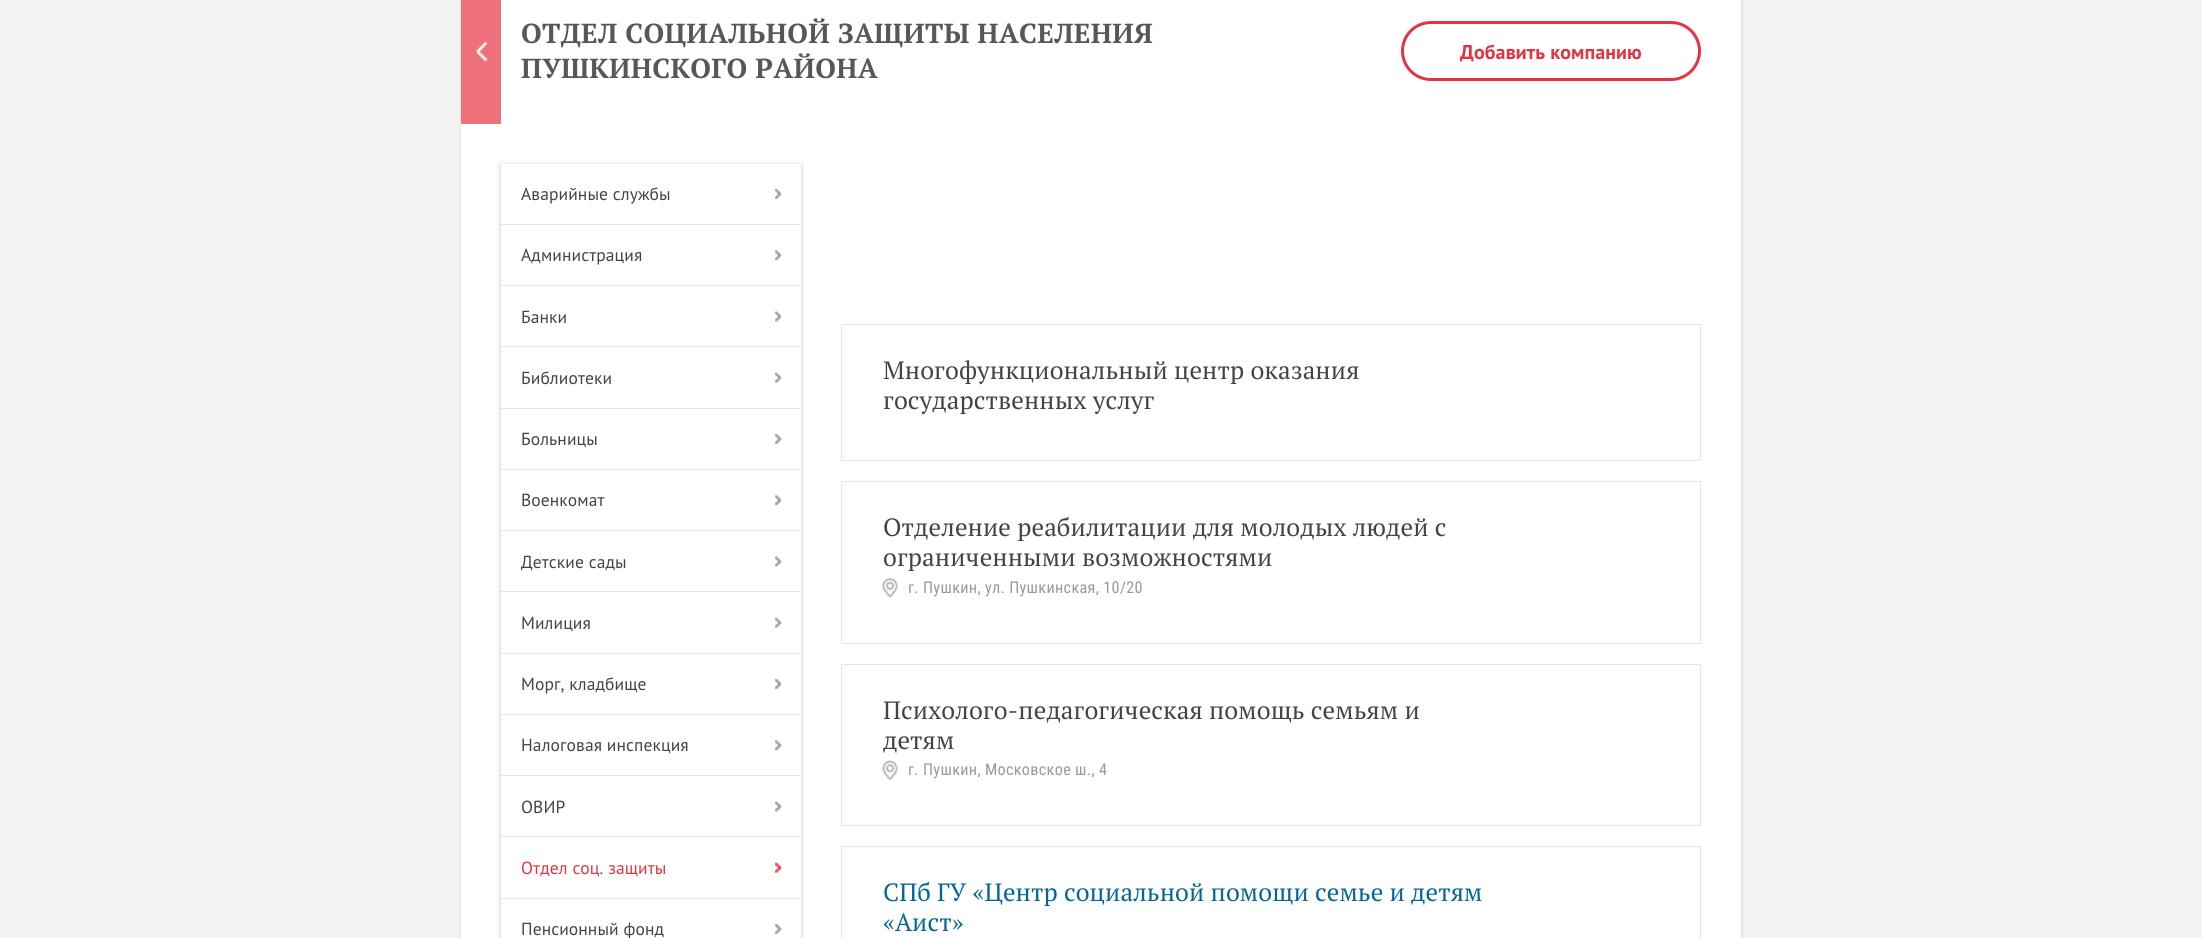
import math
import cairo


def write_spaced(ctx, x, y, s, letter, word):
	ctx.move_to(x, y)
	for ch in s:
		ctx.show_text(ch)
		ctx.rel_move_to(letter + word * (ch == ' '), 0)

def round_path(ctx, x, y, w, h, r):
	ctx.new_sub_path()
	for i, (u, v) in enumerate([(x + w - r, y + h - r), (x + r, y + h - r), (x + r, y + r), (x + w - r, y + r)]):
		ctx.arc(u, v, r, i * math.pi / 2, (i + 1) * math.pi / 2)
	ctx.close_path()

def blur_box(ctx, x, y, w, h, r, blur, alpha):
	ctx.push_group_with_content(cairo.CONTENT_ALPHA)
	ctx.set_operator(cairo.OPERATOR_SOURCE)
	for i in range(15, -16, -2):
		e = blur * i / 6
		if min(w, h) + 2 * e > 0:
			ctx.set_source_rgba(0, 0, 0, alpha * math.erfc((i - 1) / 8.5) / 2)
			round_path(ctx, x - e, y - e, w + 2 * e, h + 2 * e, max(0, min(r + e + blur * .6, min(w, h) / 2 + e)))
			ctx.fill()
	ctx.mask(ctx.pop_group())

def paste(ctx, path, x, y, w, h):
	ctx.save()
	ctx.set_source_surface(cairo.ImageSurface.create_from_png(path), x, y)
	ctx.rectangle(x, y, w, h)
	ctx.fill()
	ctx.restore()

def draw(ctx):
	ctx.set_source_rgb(0.953, 0.953, 0.953)
	ctx.paint()
	ctx.set_source_rgb(0, 0, 0)
	blur_box(ctx, 463, -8, 1277, 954, 0, 2.5, 0.25)
	ctx.set_source_rgb(1, 1, 1)
	ctx.rectangle(461, 0, 1280, 938)
	ctx.fill()
	ctx.set_source_rgb(0.933, 0.439, 0.478)
	ctx.rectangle(461, 0, 40, 124)
	ctx.fill()
	paste(ctx, 'media/1.png', 476, 41, 12, 21)
	ctx.select_font_face('PT Serif', cairo.FONT_SLANT_NORMAL, cairo.FONT_WEIGHT_BOLD)
	ctx.set_font_size(27.5)
	ctx.set_source_rgb(0.341, 0.341, 0.341)
	write_spaced(ctx, 521, 43, 'ОТДЕЛ СОЦИАЛЬНОЙ ЗАЩИТЫ НАСЕЛЕНИЯ', 0.3, 0)
	write_spaced(ctx, 521, 78, 'ПУШКИНСКОГО РАЙОНА', 0.3, 0)
	round_path(ctx, 1402.5, 22.5, 297, 57, 28.5)
	ctx.set_source_rgb(0.902, 0.196, 0.255)
	ctx.set_line_width(3)
	ctx.stroke()
	ctx.select_font_face('PT Sans', cairo.FONT_SLANT_NORMAL, cairo.FONT_WEIGHT_BOLD)
	ctx.set_font_size(20)
	write_spaced(ctx, 1460, 59, 'Добавить компанию', 0.1, 0)
	ctx.save()
	ctx.set_fill_rule(cairo.FILL_RULE_EVEN_ODD)
	ctx.new_path()
	ctx.move_to(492, 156)
	ctx.line_to(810, 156)
	ctx.line_to(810, 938)
	ctx.line_to(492, 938)
	ctx.close_path()
	ctx.move_to(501, 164)
	ctx.line_to(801, 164)
	ctx.line_to(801, 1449)
	ctx.line_to(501, 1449)
	ctx.close_path()
	ctx.clip()
	ctx.set_source_rgb(0.027, 0.027, 0.027)
	blur_box(ctx, 501, 165, 300, 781, 0, 2.5, 0.25)
	ctx.restore()
	ctx.select_font_face('PT Sans')
	ctx.set_font_size(17.5)
	ctx.set_source_rgb(0.267, 0.267, 0.267)
	write_spaced(ctx, 521, 200, 'Аварийные службы', 0.1, 0)
	paste(ctx, 'media/2.png', 775, 189, 7, 10)
	ctx.set_source_rgb(0.898, 0.898, 0.898)
	ctx.rectangle(501, 224, 300, 1)
	ctx.fill()
	ctx.set_source_rgb(0.267, 0.267, 0.267)
	write_spaced(ctx, 521, 261, 'Администрация', 0.1, 0)
	paste(ctx, 'media/3.png', 775, 250, 7, 11)
	ctx.set_source_rgb(0.898, 0.898, 0.898)
	ctx.rectangle(501, 285, 300, 1)
	ctx.fill()
	ctx.set_source_rgb(0.267, 0.267, 0.267)
	write_spaced(ctx, 521, 323, 'Банки', 0.1, 0)
	paste(ctx, 'media/4.png', 775, 311, 7, 11)
	ctx.set_source_rgb(0.898, 0.898, 0.898)
	ctx.rectangle(501, 346, 300, 1)
	ctx.fill()
	ctx.set_source_rgb(0.267, 0.267, 0.267)
	write_spaced(ctx, 521, 384, 'Библиотеки', 0.1, 0)
	paste(ctx, 'media/5.png', 775, 372, 7, 11)
	ctx.set_source_rgb(0.898, 0.898, 0.898)
	ctx.rectangle(501, 408, 300, 1)
	ctx.fill()
	ctx.set_source_rgb(0.267, 0.267, 0.267)
	write_spaced(ctx, 521, 445, 'Больницы', 0.1, 0)
	paste(ctx, 'media/2.png', 775, 434, 7, 10)
	ctx.set_source_rgb(0.898, 0.898, 0.898)
	ctx.rectangle(501, 469, 300, 1)
	ctx.fill()
	ctx.set_source_rgb(0.267, 0.267, 0.267)
	write_spaced(ctx, 521, 506, 'Военкомат', 0.1, 0)
	paste(ctx, 'media/3.png', 775, 495, 7, 11)
	ctx.set_source_rgb(0.898, 0.898, 0.898)
	ctx.rectangle(501, 530, 300, 1)
	ctx.fill()
	ctx.set_source_rgb(0.267, 0.267, 0.267)
	write_spaced(ctx, 521, 568, 'Детские сады', 0.1, 0)
	paste(ctx, 'media/4.png', 775, 556, 7, 11)
	ctx.set_source_rgb(0.898, 0.898, 0.898)
	ctx.rectangle(501, 591, 300, 1)
	ctx.fill()
	ctx.set_source_rgb(0.267, 0.267, 0.267)
	write_spaced(ctx, 521, 629, 'Милиция', 0.1, 0)
	paste(ctx, 'media/5.png', 775, 617, 7, 11)
	ctx.set_source_rgb(0.898, 0.898, 0.898)
	ctx.rectangle(501, 653, 300, 1)
	ctx.fill()
	ctx.set_source_rgb(0.267, 0.267, 0.267)
	write_spaced(ctx, 521, 690, 'Морг, кладбище', 0.1, 0)
	paste(ctx, 'media/2.png', 775, 679, 7, 10)
	ctx.set_source_rgb(0.898, 0.898, 0.898)
	ctx.rectangle(501, 714, 300, 1)
	ctx.fill()
	ctx.set_source_rgb(0.267, 0.267, 0.267)
	write_spaced(ctx, 521, 751, 'Налоговая инспекция', 0.1, 0)
	paste(ctx, 'media/3.png', 775, 740, 7, 11)
	ctx.set_source_rgb(0.898, 0.898, 0.898)
	ctx.rectangle(501, 775, 300, 1)
	ctx.fill()
	ctx.set_source_rgb(0.267, 0.267, 0.267)
	write_spaced(ctx, 521, 813, 'ОВИР', 0.1, 0)
	paste(ctx, 'media/4.png', 775, 801, 7, 11)
	ctx.set_source_rgb(0.898, 0.898, 0.898)
	ctx.rectangle(501, 836, 300, 1)
	ctx.fill()
	ctx.set_source_rgb(0.902, 0.196, 0.255)
	write_spaced(ctx, 521, 874, 'Отдел соц. защиты', 0.1, 0)
	paste(ctx, 'media/6.png', 775, 862, 7, 11)
	ctx.set_source_rgb(0.898, 0.898, 0.898)
	ctx.rectangle(501, 898, 300, 1)
	ctx.fill()
	ctx.set_source_rgb(0.267, 0.267, 0.267)
	write_spaced(ctx, 521, 935, 'Пенсионный фонд', 0.1, 0)
	paste(ctx, 'media/2.png', 775, 924, 7, 10)
	ctx.rectangle(841.5, 324.5, 859, 136)
	ctx.set_source_rgb(0.898, 0.898, 0.898)
	ctx.set_line_width(1)
	ctx.stroke()
	ctx.select_font_face('PT Serif')
	ctx.set_font_size(25)
	ctx.set_source_rgb(0.267, 0.267, 0.267)
	write_spaced(ctx, 883, 379, 'Многофункциональный центр оказания', 0.1, 0)
	write_spaced(ctx, 883, 409, 'государственных услуг', 0.1, 0)
	ctx.rectangle(841.5, 481.5, 859, 162)
	ctx.set_source_rgb(0.898, 0.898, 0.898)
	ctx.stroke()
	ctx.set_source_rgb(0.267, 0.267, 0.267)
	write_spaced(ctx, 883, 536, 'Отделение реабилитации для молодых людей с', 0.1, 0)
	write_spaced(ctx, 883, 566, 'ограниченными возможностями', 0.1, 0)
	paste(ctx, 'media/7.png', 882, 577, 16, 21)
	ctx.select_font_face('Roboto Condensed')
	ctx.set_font_size(16.25)
	ctx.set_source_rgb(0.6, 0.6, 0.6)
	write_spaced(ctx, 908, 593, 'г. Пушкин, ул. Пушкинская, 10/20', 0.3, 0)
	ctx.rectangle(841.5, 664.5, 859, 161)
	ctx.set_source_rgb(0.898, 0.898, 0.898)
	ctx.stroke()
	ctx.select_font_face('PT Serif')
	ctx.set_font_size(25)
	ctx.set_source_rgb(0.267, 0.267, 0.267)
	write_spaced(ctx, 883, 719, 'Психолого-педагогическая помощь семьям и', 0.1, 0)
	write_spaced(ctx, 883, 749, 'детям', 0.1, 0)
	paste(ctx, 'media/8.png', 882, 760, 16, 21)
	ctx.select_font_face('Roboto Condensed')
	ctx.set_font_size(16.25)
	ctx.set_source_rgb(0.6, 0.6, 0.6)
	write_spaced(ctx, 908, 775, 'г. Пушкин, Московское ш., 4', 0.3, 0)
	ctx.rectangle(841.5, 846.5, 859, 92)
	ctx.set_source_rgb(0.898, 0.898, 0.898)
	ctx.stroke()
	ctx.select_font_face('PT Serif')
	ctx.set_font_size(25)
	ctx.set_source_rgb(0.004, 0.404, 0.6)
	write_spaced(ctx, 883, 901, 'СПб ГУ «Центр социальной помощи семье и детям', 0.1, 0)
	write_spaced(ctx, 883, 931, '«Аист»', 0.1, 0)


surface = cairo.ImageSurface(cairo.FORMAT_RGB24, 2202, 938)
ctx = cairo.Context(surface)
options = cairo.FontOptions()
options.set_hint_metrics(cairo.HINT_METRICS_OFF)
options.set_hint_style(cairo.HINT_STYLE_NONE)
ctx.set_font_options(options)
ctx.set_miter_limit(4)
draw(ctx)
surface.write_to_png('image.png')
